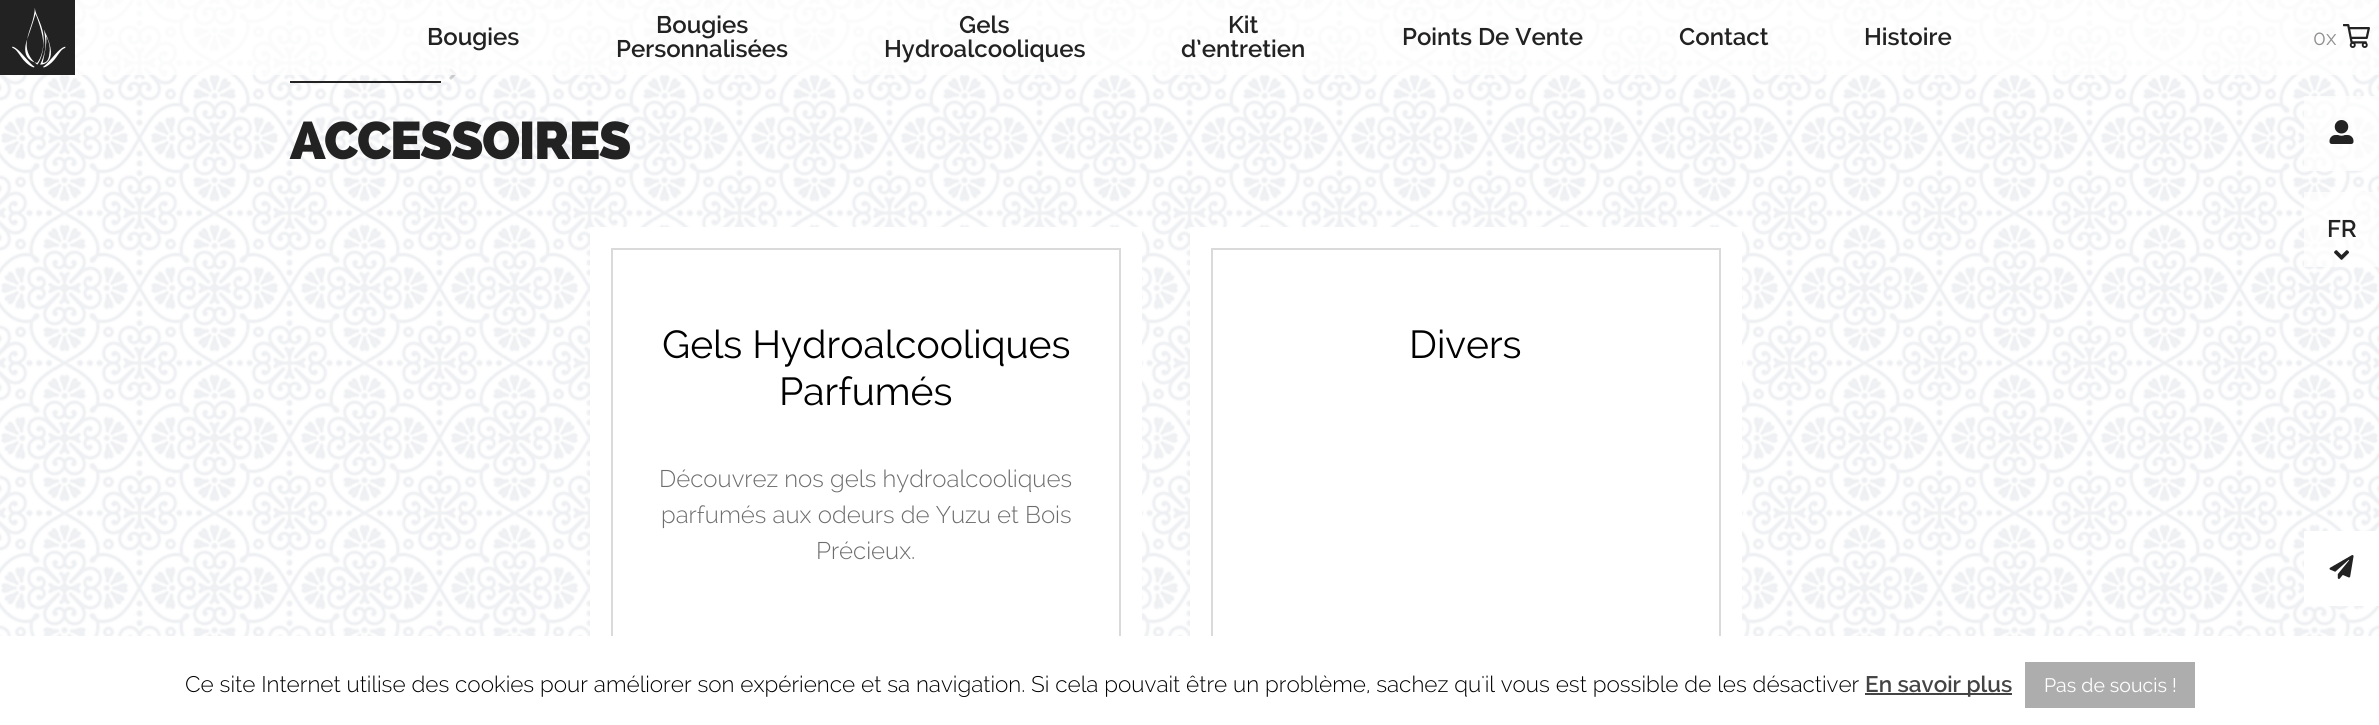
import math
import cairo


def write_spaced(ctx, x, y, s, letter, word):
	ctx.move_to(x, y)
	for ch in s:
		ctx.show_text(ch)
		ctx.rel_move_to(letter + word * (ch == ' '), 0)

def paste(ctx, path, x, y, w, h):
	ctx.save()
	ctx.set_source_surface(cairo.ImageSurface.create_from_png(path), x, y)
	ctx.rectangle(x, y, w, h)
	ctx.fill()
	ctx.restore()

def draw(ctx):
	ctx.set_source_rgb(1, 1, 1)
	ctx.paint()
	paste(ctx, 'media/1.png', 0, 0, 2379, 636)
	paste(ctx, 'media/6.png', 449, 68, 8, 12)
	ctx.set_source_rgba(1, 1, 1, 0.75)
	ctx.rectangle(75, 0, 2304, 75)
	ctx.fill()
	ctx.set_source_rgb(0.133, 0.133, 0.133)
	ctx.rectangle(0, 0, 75, 75)
	ctx.fill()
	paste(ctx, 'media/2.png', 12, 8, 54, 60)
	ctx.select_font_face('Raleway SemiBold')
	ctx.set_font_size(24)
	for x, y, s in [
		(427, 45, 'Bougies'),
		(656, 33, 'Bougies'),
		(616, 57, 'Personnalisées'),
		(959, 33, 'Gels'),
		(884, 57, 'Hydroalcooliques'),
		(1228, 33, 'Kit'),
		(1181, 57, 'd’entretien'),
		(1402, 45, 'Points De Vente'),
		(1679, 45, 'Contact'),
		(1864, 45, 'Histoire'),
	]:
		ctx.move_to(x, y)
		ctx.show_text(s)
	ctx.set_source_rgba(1, 1, 1, 0.75)
	ctx.rectangle(2304, 96, 75, 75)
	ctx.fill()
	paste(ctx, 'media/3.png', 2329, 120, 25, 24)
	ctx.rectangle(2304, 192, 75, 75)
	ctx.fill()
	ctx.set_source_rgb(0.133, 0.133, 0.133)
	ctx.move_to(2327, 237)
	ctx.show_text('FR')
	paste(ctx, 'media/4.png', 2334, 250, 15, 10)
	ctx.select_font_face('Raleway')
	ctx.set_font_size(21)
	ctx.set_source_rgb(0.561, 0.561, 0.565)
	ctx.move_to(2313, 45)
	ctx.show_text('0x')
	paste(ctx, 'media/5.png', 2343, 24, 27, 24)
	ctx.set_source_rgb(0.133, 0.133, 0.133)
	ctx.rectangle(290, 81, 151, 2)
	ctx.fill()
	ctx.select_font_face('Raleway Black')
	ctx.set_font_size(52.75)
	write_spaced(ctx, 290, 159, 'ACCESSOIRES', -1.5, 0)
	ctx.set_source_rgb(1, 1, 1)
	ctx.rectangle(590, 227, 552, 409)
	ctx.fill()
	ctx.rectangle(612, 249, 508, 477)
	ctx.set_source_rgb(0.855, 0.855, 0.855)
	ctx.stroke()
	ctx.select_font_face('Raleway')
	ctx.set_font_size(39)
	ctx.set_source_rgb(0, 0, 0)
	ctx.move_to(662, 358)
	ctx.show_text('Gels Hydroalcooliques')
	ctx.move_to(779, 405)
	ctx.show_text('Parfumés')
	ctx.select_font_face('Raleway Light')
	ctx.set_font_size(24)
	ctx.set_source_rgb(0.427, 0.427, 0.427)
	for x, y, s in [
		(659, 487, 'Découvrez nos gels hydroalcooliques'),
		(661, 523, 'parfumés aux odeurs de Yuzu et Bois'),
		(816, 559, 'Précieux.'),
	]:
		ctx.move_to(x, y)
		ctx.show_text(s)
	ctx.set_source_rgb(1, 1, 1)
	ctx.rectangle(1190, 227, 552, 409)
	ctx.fill()
	ctx.rectangle(1212, 249, 508, 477)
	ctx.set_source_rgb(0.855, 0.855, 0.855)
	ctx.stroke()
	ctx.select_font_face('Raleway')
	ctx.set_font_size(39)
	ctx.set_source_rgb(0, 0, 0)
	ctx.move_to(1409, 358)
	ctx.show_text('Divers')
	ctx.set_source_rgb(1, 1, 1)
	ctx.rectangle(2304, 531, 75, 75)
	ctx.fill()
	paste(ctx, 'media/7.png', 2329, 555, 25, 24)
	ctx.rectangle(611, 636, 1110, 89)
	ctx.fill()
	ctx.select_font_face('Raleway Light')
	ctx.set_font_size(22.5)
	ctx.set_source_rgb(0, 0, 0)
	ctx.move_to(185, 692)
	ctx.show_text('Ce site Internet utilise des cookies pour améliorer son expérience et sa navigation. Si cela pouvait être un problème, sachez qu\'il vous est possible de les désactiver')
	ctx.set_source_rgb(0.267, 0.267, 0.267)
	ctx.rectangle(1865, 693, 147, 2)
	ctx.fill()
	ctx.select_font_face('Raleway SemiBold')
	ctx.move_to(1865, 692)
	ctx.show_text('En savoir plus')
	ctx.set_source_rgb(0.678, 0.678, 0.678)
	ctx.rectangle(2025, 662, 170, 46)
	ctx.fill()
	ctx.select_font_face('Raleway')
	ctx.set_font_size(19.5)
	ctx.set_source_rgb(1, 1, 1)
	ctx.move_to(2044, 692)
	ctx.show_text('Pas de soucis !')


surface = cairo.ImageSurface(cairo.FORMAT_RGB24, 2379, 725)
ctx = cairo.Context(surface)
options = cairo.FontOptions()
options.set_hint_metrics(cairo.HINT_METRICS_OFF)
options.set_hint_style(cairo.HINT_STYLE_NONE)
ctx.set_font_options(options)
ctx.set_miter_limit(4)
draw(ctx)
surface.write_to_png('image.png')
